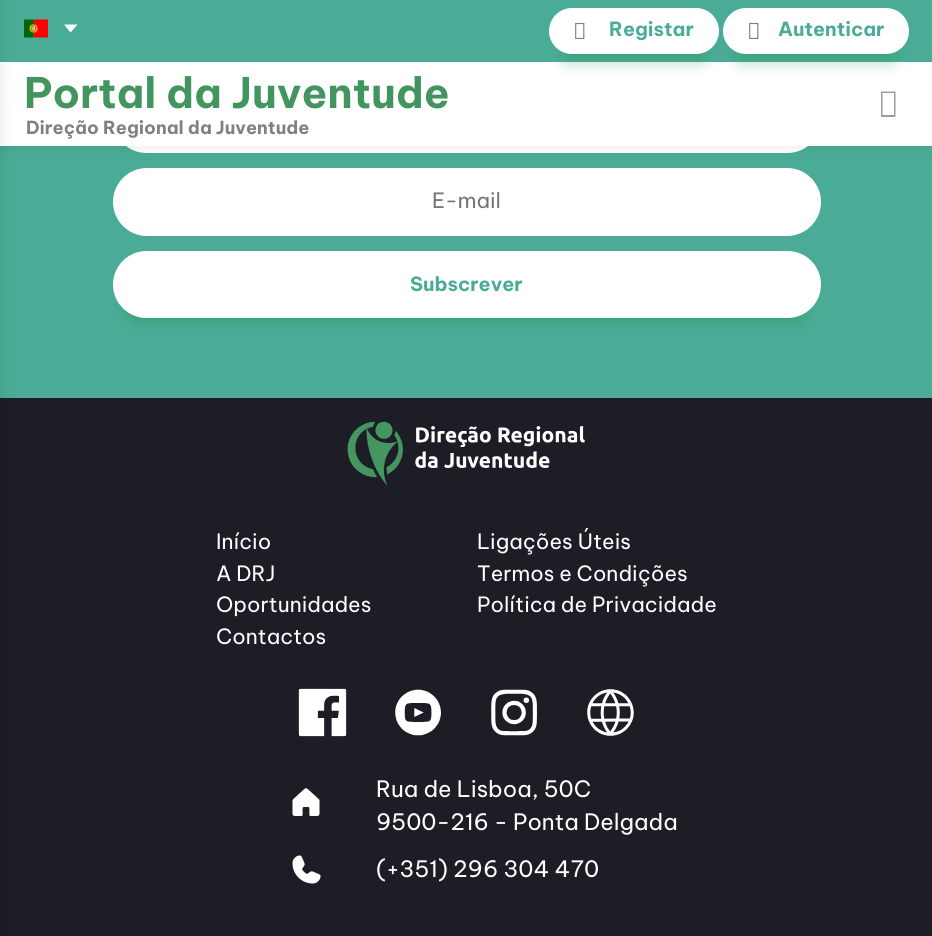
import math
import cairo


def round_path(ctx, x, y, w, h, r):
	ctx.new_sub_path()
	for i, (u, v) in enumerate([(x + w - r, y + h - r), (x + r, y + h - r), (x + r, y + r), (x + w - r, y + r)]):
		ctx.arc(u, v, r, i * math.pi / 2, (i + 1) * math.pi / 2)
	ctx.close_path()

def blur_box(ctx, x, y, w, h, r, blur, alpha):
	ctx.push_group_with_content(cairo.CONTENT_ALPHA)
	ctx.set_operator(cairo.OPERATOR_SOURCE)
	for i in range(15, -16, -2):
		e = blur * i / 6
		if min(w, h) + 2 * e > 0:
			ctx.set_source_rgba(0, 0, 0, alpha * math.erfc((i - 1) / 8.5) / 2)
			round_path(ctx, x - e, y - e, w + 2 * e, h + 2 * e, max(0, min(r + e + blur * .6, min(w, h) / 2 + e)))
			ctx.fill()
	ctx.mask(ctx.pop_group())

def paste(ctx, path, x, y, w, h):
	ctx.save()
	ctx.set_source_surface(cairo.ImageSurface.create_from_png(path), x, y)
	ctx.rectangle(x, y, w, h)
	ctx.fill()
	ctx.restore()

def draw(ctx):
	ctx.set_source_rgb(0.29, 0.675, 0.588)
	ctx.paint()
	ctx.set_source_rgb(1, 1, 1)
	round_path(ctx, 113, 86, 708, 67, 33.5)
	ctx.fill()
	round_path(ctx, 113, 168, 708, 68, 34)
	ctx.fill()
	ctx.set_source_rgb(0, 0, 0)
	blur_box(ctx, 0, 0, 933, 146, 0, 8, 0.1)
	ctx.set_source_rgb(1, 1, 1)
	ctx.rectangle(0, 62, 932, 84)
	ctx.fill()
	ctx.set_source_rgb(0.29, 0.675, 0.588)
	ctx.rectangle(0, 0, 932, 62)
	ctx.fill()
	paste(ctx, 'media/1.png', 24, 19, 24, 19)
	ctx.set_source_rgb(1, 1, 1)
	ctx.new_path()
	ctx.move_to(64, 24.5)
	ctx.line_to(70.5, 32.5)
	ctx.line_to(77.5, 24.5)
	ctx.close_path()
	ctx.fill()
	ctx.set_source_rgb(0.188, 0.596, 0.4)
	blur_box(ctx, 569, 47, 130, 7, 3.5, 10, 1)
	ctx.set_source_rgb(1, 1, 1)
	round_path(ctx, 549, 8, 170, 46, 23)
	ctx.fill()
	paste(ctx, 'media/2.png', 575, 22, 10, 17)
	ctx.select_font_face('Be Vietnam Pro', cairo.FONT_SLANT_NORMAL, cairo.FONT_WEIGHT_BOLD)
	ctx.set_font_size(19.5)
	ctx.set_source_rgb(0.29, 0.675, 0.588)
	ctx.move_to(609, 36)
	ctx.show_text('Registar')
	ctx.set_source_rgb(0.188, 0.596, 0.4)
	blur_box(ctx, 743, 47, 147, 7, 3.5, 10, 1)
	ctx.set_source_rgb(1, 1, 1)
	round_path(ctx, 723, 8, 186, 46, 23)
	ctx.fill()
	paste(ctx, 'media/2.png', 749, 22, 10, 17)
	ctx.set_source_rgb(0.29, 0.675, 0.588)
	ctx.move_to(778, 36)
	ctx.show_text('Autenticar')
	ctx.set_source_rgb(0.114, 0.118, 0.145)
	ctx.rectangle(0, 398, 932, 538)
	ctx.fill()
	ctx.set_source_rgb(0, 0, 0)
	blur_box(ctx, -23, 3, 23, 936, 0, 7.5, 0.1)
	ctx.set_font_size(42)
	ctx.set_source_rgb(0.263, 0.584, 0.376)
	ctx.move_to(24, 108)
	ctx.show_text('Portal da Juventude')
	ctx.set_font_size(18)
	ctx.set_source_rgb(0.502, 0.502, 0.502)
	ctx.move_to(26, 134)
	ctx.show_text('Direção Regional da Juventude')
	ctx.set_source_rgb(0.6, 0.62, 0.639)
	ctx.new_path()
	ctx.move_to(881, 117)
	ctx.line_to(881, 91.5)
	ctx.line_to(895.5, 91.5)
	ctx.line_to(895.5, 117)
	ctx.close_path()
	ctx.move_to(882.5, 115)
	ctx.line_to(894, 115)
	ctx.line_to(894, 93)
	ctx.line_to(882.5, 93)
	ctx.close_path()
	ctx.fill()
	ctx.select_font_face('Be Vietnam Pro')
	ctx.set_font_size(21)
	ctx.set_source_rgb(0.459, 0.459, 0.459)
	ctx.move_to(432, 208)
	ctx.show_text('E-mail')
	ctx.set_source_rgb(0.188, 0.596, 0.4)
	blur_box(ctx, 132, 290, 669, 28, 14, 10, 1)
	ctx.set_source_rgb(1, 1, 1)
	round_path(ctx, 113, 251, 708, 67, 33.5)
	ctx.fill()
	ctx.select_font_face('Be Vietnam Pro', cairo.FONT_SLANT_NORMAL, cairo.FONT_WEIGHT_BOLD)
	ctx.set_font_size(19.5)
	ctx.set_source_rgb(0.29, 0.675, 0.588)
	ctx.move_to(410, 291)
	ctx.show_text('Subscrever')
	paste(ctx, 'media/3.png', 347, 421, 238, 65)
	ctx.select_font_face('Be Vietnam Pro')
	ctx.set_font_size(21)
	ctx.set_source_rgb(1, 1, 1)
	for x, y, s in [
		(216, 549, 'Início'),
		(477, 549, 'Ligações Úteis'),
		(216, 581, 'A DRJ'),
		(477, 581, 'Termos e Condições'),
		(216, 612, 'Oportunidades'),
		(477, 612, 'Política de Privacidade'),
		(216, 644, 'Contactos'),
	]:
		ctx.move_to(x, y)
		ctx.show_text(s)
	paste(ctx, 'media/4.png', 298, 688, 49, 49)
	paste(ctx, 'media/5.png', 395, 689, 46, 47)
	paste(ctx, 'media/6.png', 491, 689, 46, 47)
	paste(ctx, 'media/7.png', 587, 689, 47, 47)
	paste(ctx, 'media/8.png', 292, 788, 28, 28)
	ctx.set_font_size(22.5)
	ctx.move_to(376, 797)
	ctx.show_text('Rua de Lisboa, 50C')
	ctx.move_to(376, 830)
	ctx.show_text('9500-216 - Ponta Delgada')
	paste(ctx, 'media/9.png', 292, 855, 29, 29)
	ctx.move_to(376, 877)
	ctx.show_text('(+351) 296 304 470')


surface = cairo.ImageSurface(cairo.FORMAT_RGB24, 932, 936)
ctx = cairo.Context(surface)
options = cairo.FontOptions()
options.set_hint_metrics(cairo.HINT_METRICS_OFF)
options.set_hint_style(cairo.HINT_STYLE_NONE)
ctx.set_font_options(options)
ctx.set_miter_limit(4)
draw(ctx)
surface.write_to_png('image.png')
